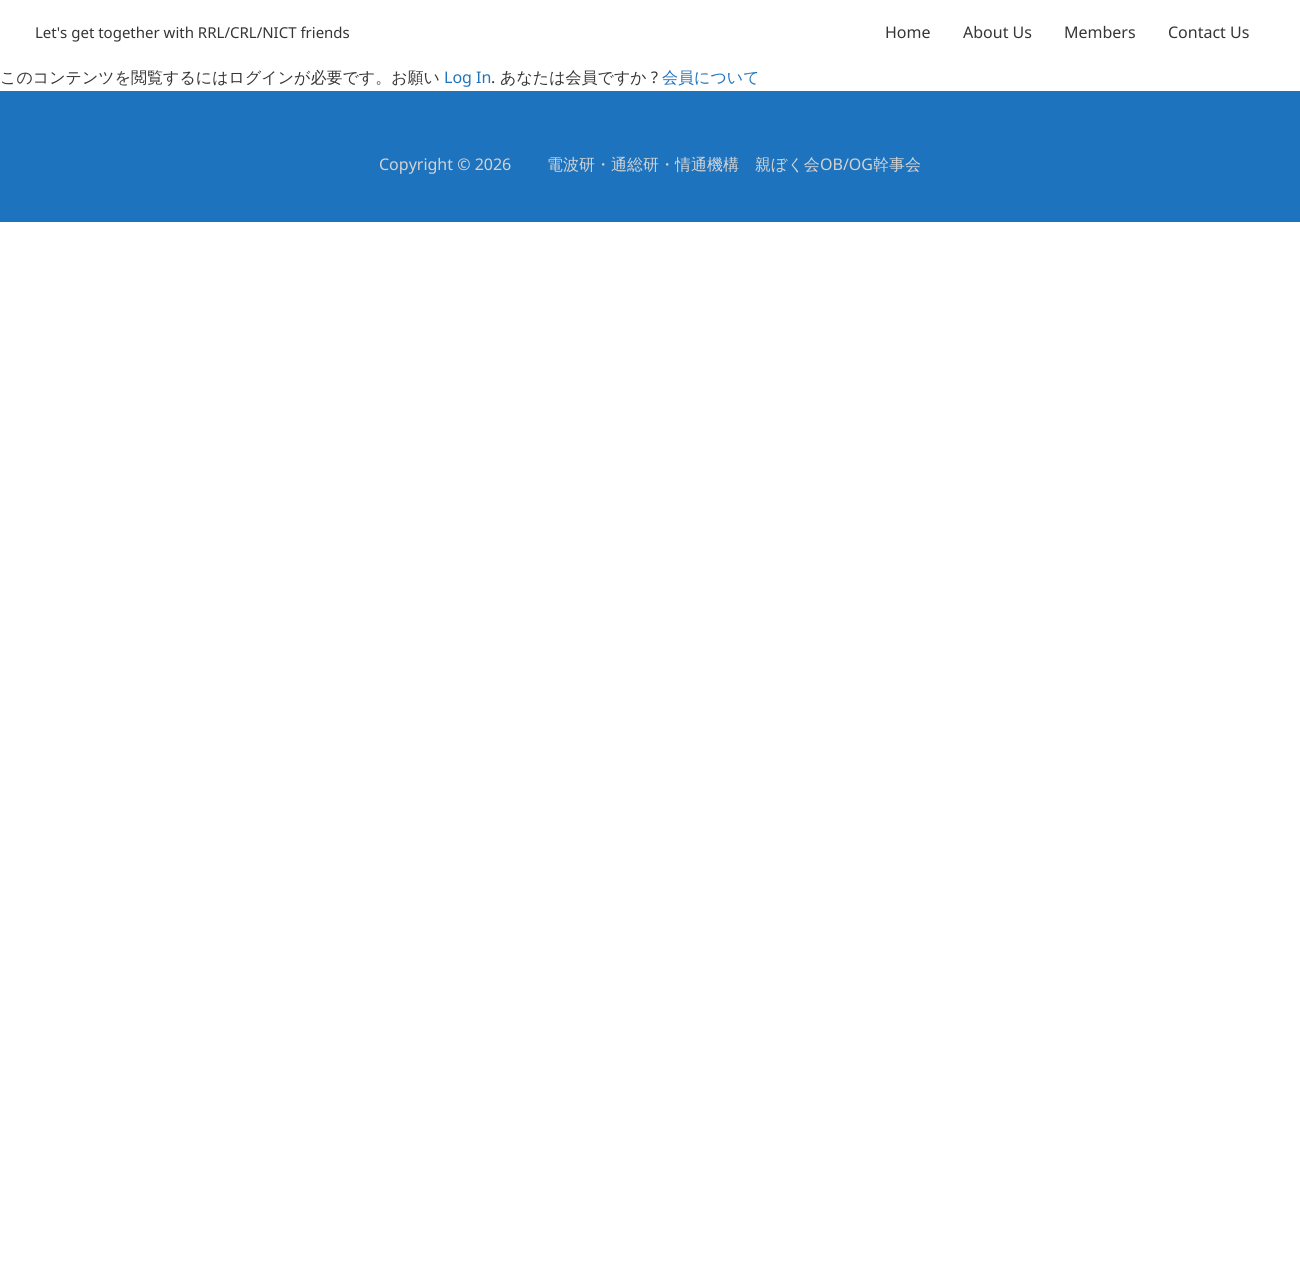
import math
import cairo


def draw(ctx):
	ctx.set_source_rgb(1, 1, 1)
	ctx.paint()
	ctx.select_font_face('Noto Sans')
	ctx.set_font_size(15)
	ctx.set_source_rgb(0.208, 0.208, 0.208)
	ctx.move_to(35, 38)
	ctx.show_text('Let\'s get together with RRL/CRL/NICT friends')
	ctx.set_font_size(16)
	for x, y, s in [
		(885, 38, 'Home'),
		(963, 38, 'About Us'),
		(1064, 38, 'Members'),
		(1168, 38, 'Contact Us'),
	]:
		ctx.move_to(x, y)
		ctx.show_text(s)
	ctx.select_font_face('WenQuanYi Zen Hei Medium')
	ctx.move_to(0, 83)
	ctx.show_text('このコンテンツを閲覧するにはログインが必要です。お願い')
	ctx.select_font_face('Noto Sans')
	ctx.set_source_rgb(0.118, 0.451, 0.745)
	ctx.move_to(444, 83)
	ctx.show_text('Log In')
	ctx.set_source_rgb(0.208, 0.208, 0.208)
	ctx.move_to(491, 83)
	ctx.show_text('.')
	ctx.select_font_face('WenQuanYi Zen Hei Medium')
	ctx.move_to(500, 83)
	ctx.show_text('あなたは会員ですか')
	ctx.select_font_face('Noto Sans')
	ctx.move_to(651, 83)
	ctx.show_text('?')
	ctx.select_font_face('WenQuanYi Zen Hei Medium')
	ctx.set_source_rgb(0.118, 0.451, 0.745)
	ctx.move_to(662, 83)
	ctx.show_text('会員について')
	ctx.rectangle(0, 91, 1300, 131)
	ctx.fill()
	ctx.select_font_face('Noto Sans')
	ctx.set_source_rgb(0.827, 0.827, 0.827)
	ctx.move_to(379, 170)
	ctx.show_text('Copyright © 2026')
	ctx.select_font_face('WenQuanYi Zen Hei Medium')
	ctx.move_to(547, 170)
	ctx.show_text('電波研・通総研・情通機構　親ぼく会')
	ctx.select_font_face('Noto Sans')
	ctx.move_to(820, 170)
	ctx.show_text('OB/OG')
	ctx.select_font_face('WenQuanYi Zen Hei Medium')
	ctx.move_to(873, 170)
	ctx.show_text('幹事会')


surface = cairo.ImageSurface(cairo.FORMAT_RGB24, 1300, 1261)
ctx = cairo.Context(surface)
options = cairo.FontOptions()
options.set_hint_metrics(cairo.HINT_METRICS_OFF)
options.set_hint_style(cairo.HINT_STYLE_NONE)
ctx.set_font_options(options)
ctx.set_miter_limit(4)
draw(ctx)
surface.write_to_png('image.png')
